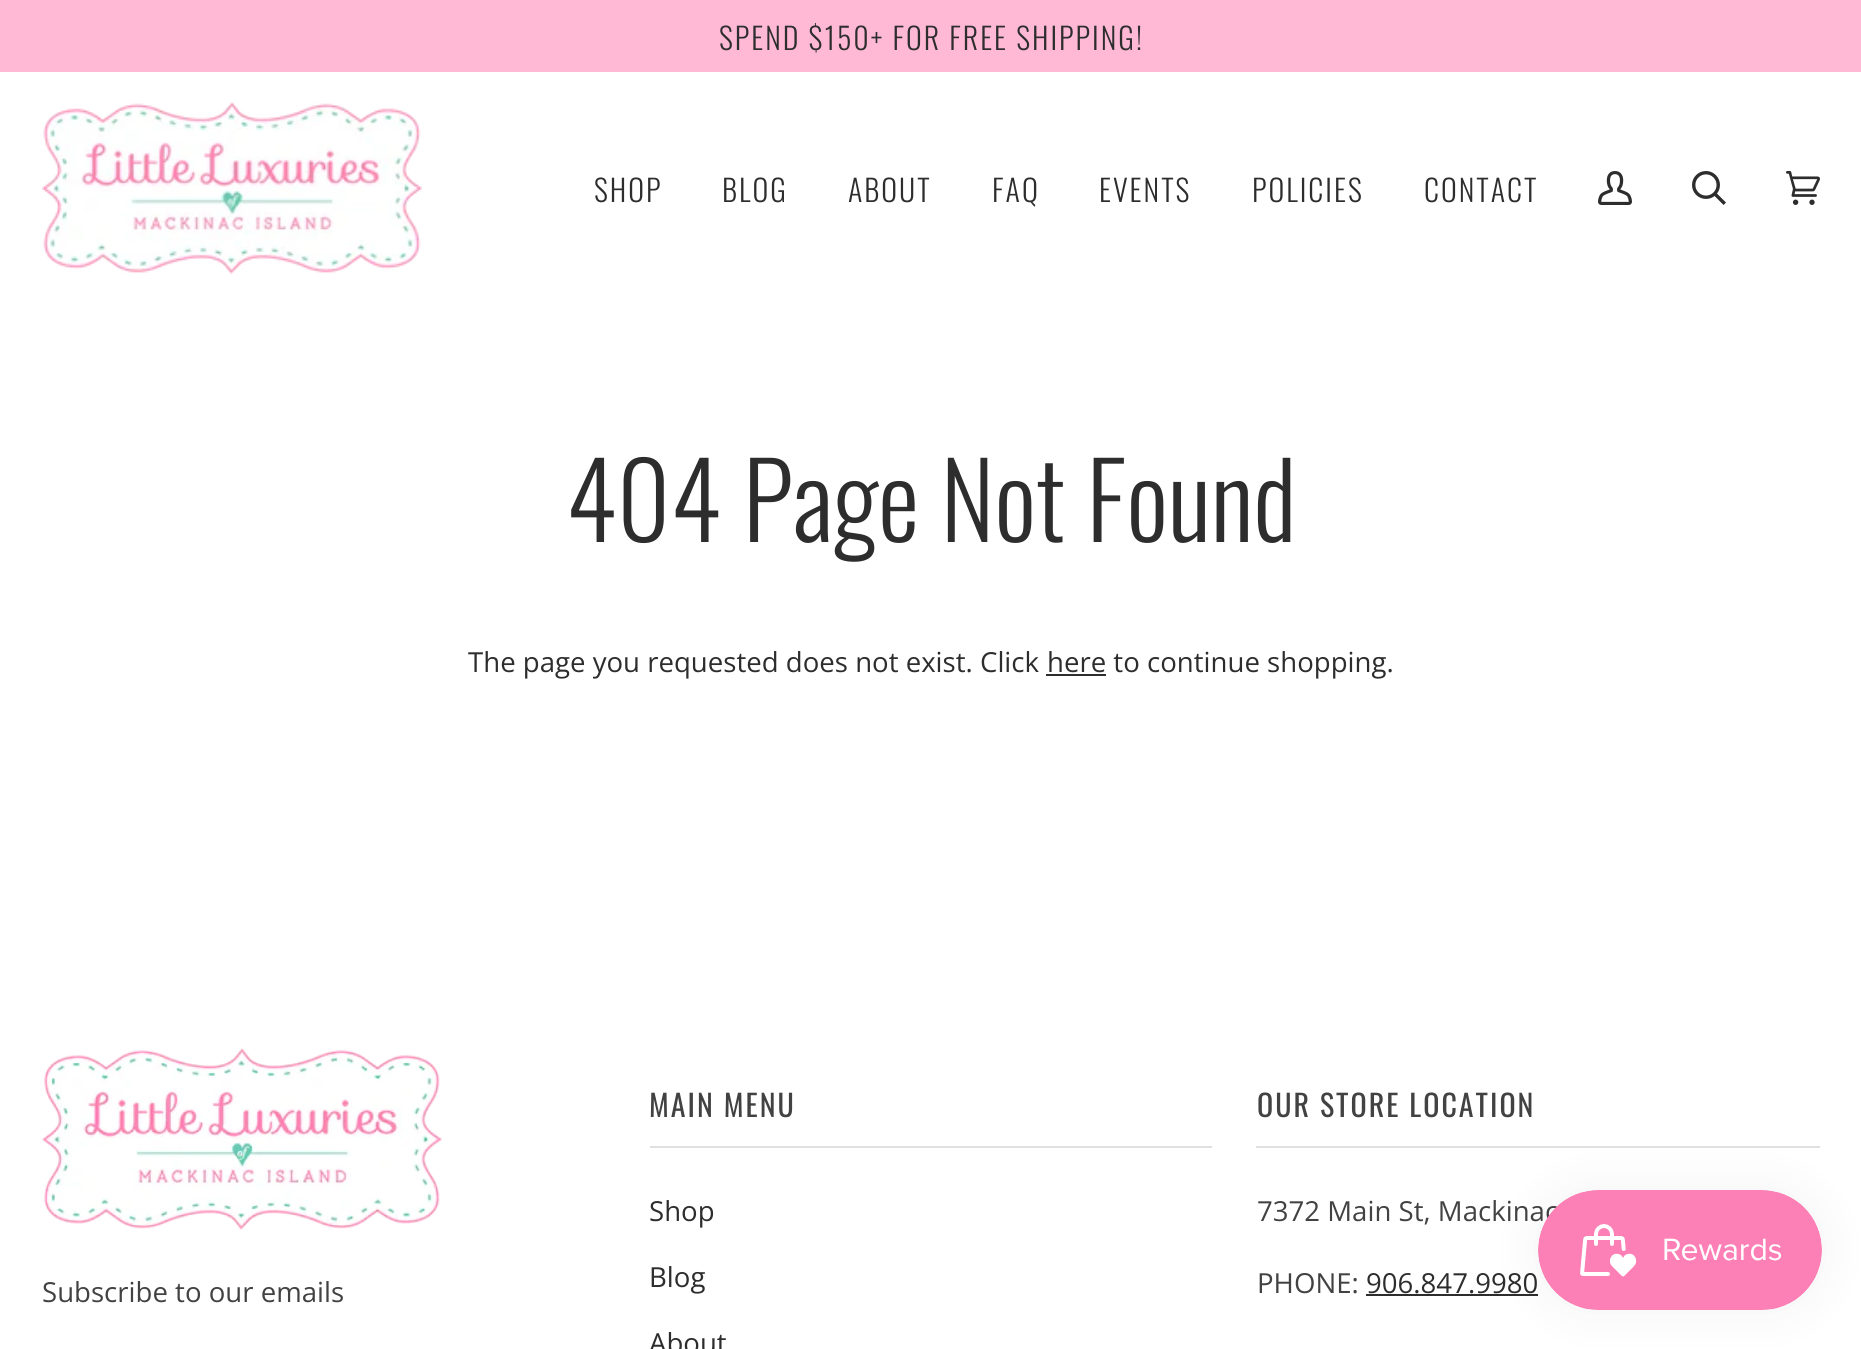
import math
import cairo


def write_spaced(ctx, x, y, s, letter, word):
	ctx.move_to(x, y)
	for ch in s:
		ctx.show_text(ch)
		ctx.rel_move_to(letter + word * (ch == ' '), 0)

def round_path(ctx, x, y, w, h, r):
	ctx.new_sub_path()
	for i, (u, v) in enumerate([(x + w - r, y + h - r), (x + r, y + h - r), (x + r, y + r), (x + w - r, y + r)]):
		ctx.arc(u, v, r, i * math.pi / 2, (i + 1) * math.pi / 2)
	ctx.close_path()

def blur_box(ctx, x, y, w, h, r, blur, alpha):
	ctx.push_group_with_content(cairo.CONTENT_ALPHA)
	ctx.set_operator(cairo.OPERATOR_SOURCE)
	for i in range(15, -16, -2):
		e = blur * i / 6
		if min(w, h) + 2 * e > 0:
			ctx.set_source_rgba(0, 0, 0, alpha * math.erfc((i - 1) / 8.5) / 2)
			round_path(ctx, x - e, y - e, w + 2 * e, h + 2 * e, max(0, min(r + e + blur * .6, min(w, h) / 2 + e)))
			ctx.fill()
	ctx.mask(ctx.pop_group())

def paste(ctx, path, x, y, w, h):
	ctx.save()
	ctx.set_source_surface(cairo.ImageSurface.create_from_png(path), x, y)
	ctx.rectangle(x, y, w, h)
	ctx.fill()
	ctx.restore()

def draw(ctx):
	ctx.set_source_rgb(1, 1, 1)
	ctx.paint()
	ctx.set_source_rgb(1, 0.725, 0.835)
	ctx.rectangle(0, 0, 1861, 72)
	ctx.fill()
	ctx.select_font_face('Oswald Light')
	ctx.set_font_size(30)
	ctx.set_source_rgb(0.176, 0.176, 0.176)
	write_spaced(ctx, 719, 50, 'SPEND $150+ FOR FREE SHIPPING!', 2, 0)
	paste(ctx, 'media/1.png', 42, 102, 380, 172)
	for x, y, s in [
		(594, 202, 'SHOP'),
		(722, 202, 'BLOG'),
		(848, 202, 'ABOUT'),
		(992, 202, 'FAQ'),
		(1099, 202, 'EVENTS'),
		(1252, 202, 'POLICIES'),
		(1424, 202, 'CONTACT'),
	]:
		write_spaced(ctx, x, y, s, 2, 0)
	paste(ctx, 'media/2.png', 1598, 171, 34, 34)
	paste(ctx, 'media/3.png', 1692, 171, 34, 34)
	paste(ctx, 'media/4.png', 1786, 171, 34, 34)
	ctx.set_font_size(104)
	ctx.move_to(566, 542)
	ctx.show_text('404 Page Not Found')
	ctx.select_font_face('Open Sans')
	ctx.set_font_size(27.6)
	ctx.move_to(468, 672)
	ctx.show_text('The page you requested does not exist. Click')
	ctx.rectangle(1046, 674, 60, 2)
	ctx.fill()
	ctx.move_to(1047, 672)
	ctx.show_text('here to continue shopping.')
	paste(ctx, 'media/5.png', 42, 1048, 400, 182)
	ctx.set_source_rgb(0.259, 0.259, 0.259)
	ctx.move_to(42, 1302)
	ctx.show_text('Subscribe to our emails')
	ctx.set_source_rgb(0.878, 0.878, 0.878)
	ctx.rectangle(650, 1146, 562, 2)
	ctx.fill()
	ctx.select_font_face('Oswald')
	ctx.set_font_size(30)
	ctx.set_source_rgb(0.259, 0.259, 0.259)
	write_spaced(ctx, 649, 1117, 'MAIN MENU', 2, 0)
	ctx.select_font_face('Open Sans')
	ctx.set_font_size(27.6)
	ctx.set_source_rgb(0.176, 0.176, 0.176)
	for x, y, s in [
		(649, 1221, 'Shop'),
		(649, 1287, 'Blog'),
		(649, 1353, 'About'),
	]:
		ctx.move_to(x, y)
		ctx.show_text(s)
	ctx.set_source_rgb(0.878, 0.878, 0.878)
	ctx.rectangle(1256, 1146, 564, 2)
	ctx.fill()
	ctx.select_font_face('Oswald')
	ctx.set_font_size(30)
	ctx.set_source_rgb(0.259, 0.259, 0.259)
	write_spaced(ctx, 1257, 1117, 'OUR STORE LOCATION', 2, 0)
	ctx.select_font_face('Open Sans')
	ctx.set_font_size(27.6)
	ctx.move_to(1257, 1221)
	ctx.show_text('7372 Main St, Mackinac')
	ctx.move_to(1257, 1293)
	ctx.show_text('PHONE:')
	ctx.set_source_rgb(0.176, 0.176, 0.176)
	ctx.move_to(1366, 1293)
	ctx.show_text('906.847.9980')
	ctx.rectangle(1366, 1294, 172, 2)
	ctx.fill()
	ctx.set_source_rgb(0, 0, 0)
	blur_box(ctx, 1538, 1190, 284, 120, 60, 25, 0.05)
	paste(ctx, 'media/6.png', 1538, 1190, 284, 120)


surface = cairo.ImageSurface(cairo.FORMAT_RGB24, 1861, 1349)
ctx = cairo.Context(surface)
options = cairo.FontOptions()
options.set_hint_metrics(cairo.HINT_METRICS_OFF)
options.set_hint_style(cairo.HINT_STYLE_NONE)
ctx.set_font_options(options)
ctx.set_miter_limit(4)
draw(ctx)
surface.write_to_png('image.png')
